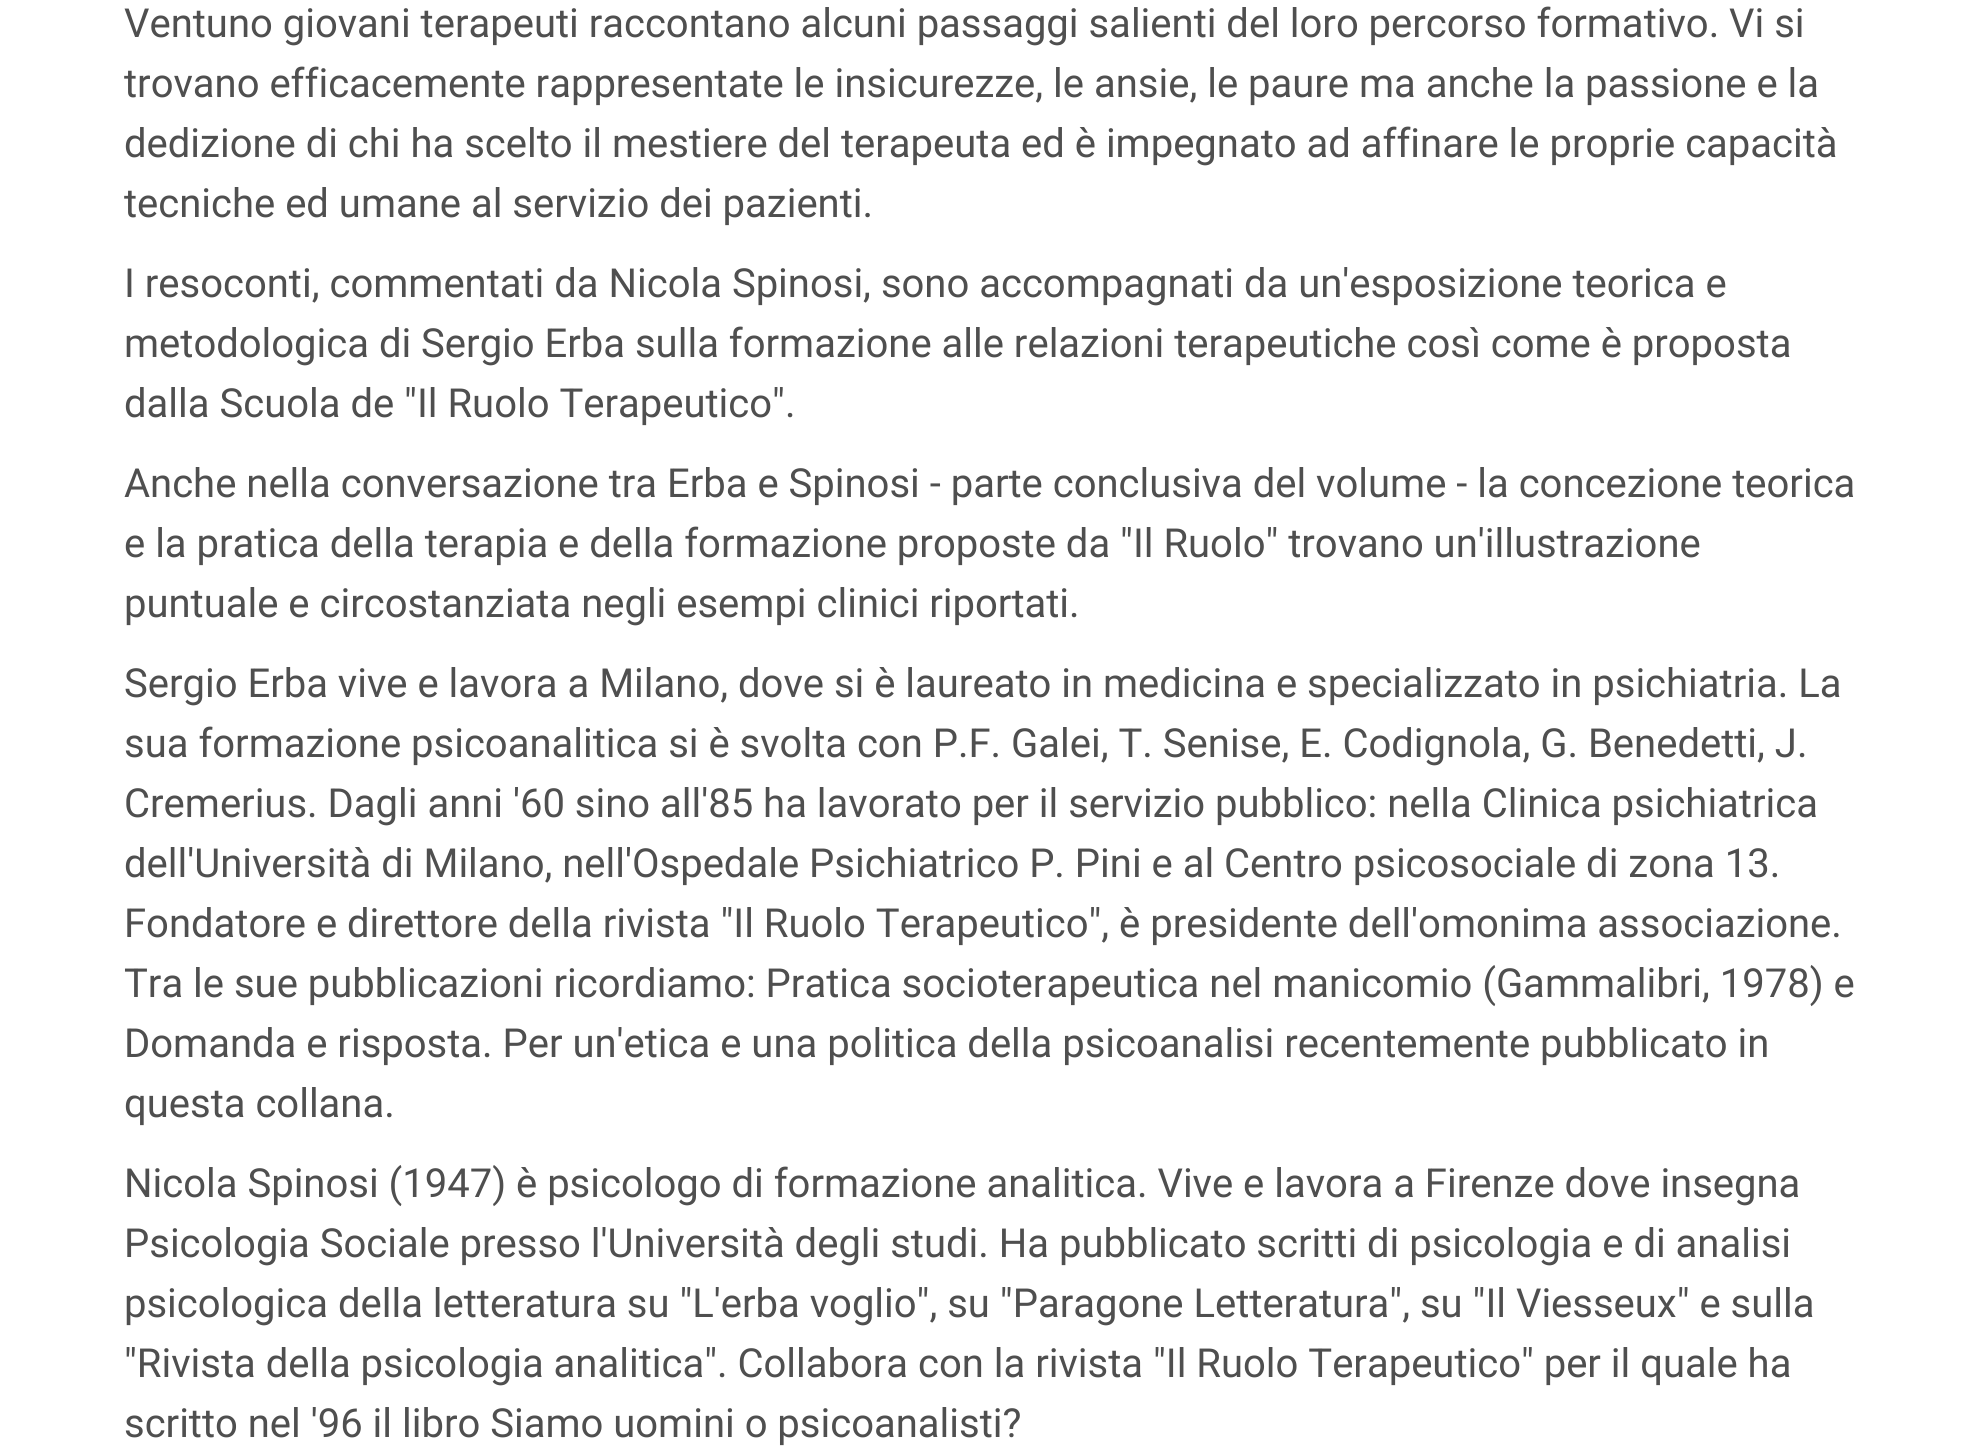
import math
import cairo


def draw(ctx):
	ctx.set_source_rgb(1, 1, 1)
	ctx.paint()
	ctx.select_font_face('Roboto')
	ctx.set_font_size(40)
	ctx.set_source_rgb(0.31, 0.31, 0.31)
	for x, y, s in [
		(124, 37, 'Ventuno giovani terapeuti raccontano alcuni passaggi salienti del loro percorso formativo. Vi si'),
		(124, 97, 'trovano efficacemente rappresentate le insicurezze, le ansie, le paure ma anche la passione e la'),
		(124, 157, 'dedizione di chi ha scelto il mestiere del terapeuta ed è impegnato ad affinare le proprie capacità'),
		(124, 217, 'tecniche ed umane al servizio dei pazienti.'),
		(124, 297, 'I resoconti, commentati da Nicola Spinosi, sono accompagnati da un\'esposizione teorica e'),
		(124, 357, 'metodologica di Sergio Erba sulla formazione alle relazioni terapeutiche così come è proposta'),
		(124, 417, 'dalla Scuola de "Il Ruolo Terapeutico".'),
		(124, 497, 'Anche nella conversazione tra Erba e Spinosi - parte conclusiva del volume - la concezione teorica'),
		(124, 557, 'e la pratica della terapia e della formazione proposte da "Il Ruolo" trovano un\'illustrazione'),
		(124, 617, 'puntuale e circostanziata negli esempi clinici riportati.'),
		(124, 697, 'Sergio Erba vive e lavora a Milano, dove si è laureato in medicina e specializzato in psichiatria. La'),
		(124, 757, 'sua formazione psicoanalitica si è svolta con P.F. Galei, T. Senise, E. Codignola, G. Benedetti, J.'),
		(124, 817, 'Cremerius. Dagli anni \'60 sino all\'85 ha lavorato per il servizio pubblico: nella Clinica psichiatrica'),
		(124, 877, 'dell\'Università di Milano, nell\'Ospedale Psichiatrico P. Pini e al Centro psicosociale di zona 13.'),
		(124, 937, 'Fondatore e direttore della rivista "Il Ruolo Terapeutico", è presidente dell\'omonima associazione.'),
		(124, 997, 'Tra le sue pubblicazioni ricordiamo: Pratica socioterapeutica nel manicomio (Gammalibri, 1978) e'),
		(124, 1057, 'Domanda e risposta. Per un\'etica e una politica della psicoanalisi recentemente pubblicato in'),
		(124, 1117, 'questa collana.'),
		(124, 1197, 'Nicola Spinosi (1947) è psicologo di formazione analitica. Vive e lavora a Firenze dove insegna'),
		(124, 1257, 'Psicologia Sociale presso l\'Università degli studi. Ha pubblicato scritti di psicologia e di analisi'),
		(124, 1317, 'psicologica della letteratura su "L\'erba voglio", su "Paragone Letteratura", su "Il Viesseux" e sulla'),
		(124, 1377, '"Rivista della psicologia analitica". Collabora con la rivista "Il Ruolo Terapeutico" per il quale ha'),
		(124, 1437, 'scritto nel \'96 il libro Siamo uomini o psicoanalisti?'),
	]:
		ctx.move_to(x, y)
		ctx.show_text(s)


surface = cairo.ImageSurface(cairo.FORMAT_RGB24, 1987, 1448)
ctx = cairo.Context(surface)
options = cairo.FontOptions()
options.set_hint_metrics(cairo.HINT_METRICS_OFF)
options.set_hint_style(cairo.HINT_STYLE_NONE)
ctx.set_font_options(options)
ctx.set_miter_limit(4)
draw(ctx)
surface.write_to_png('image.png')
